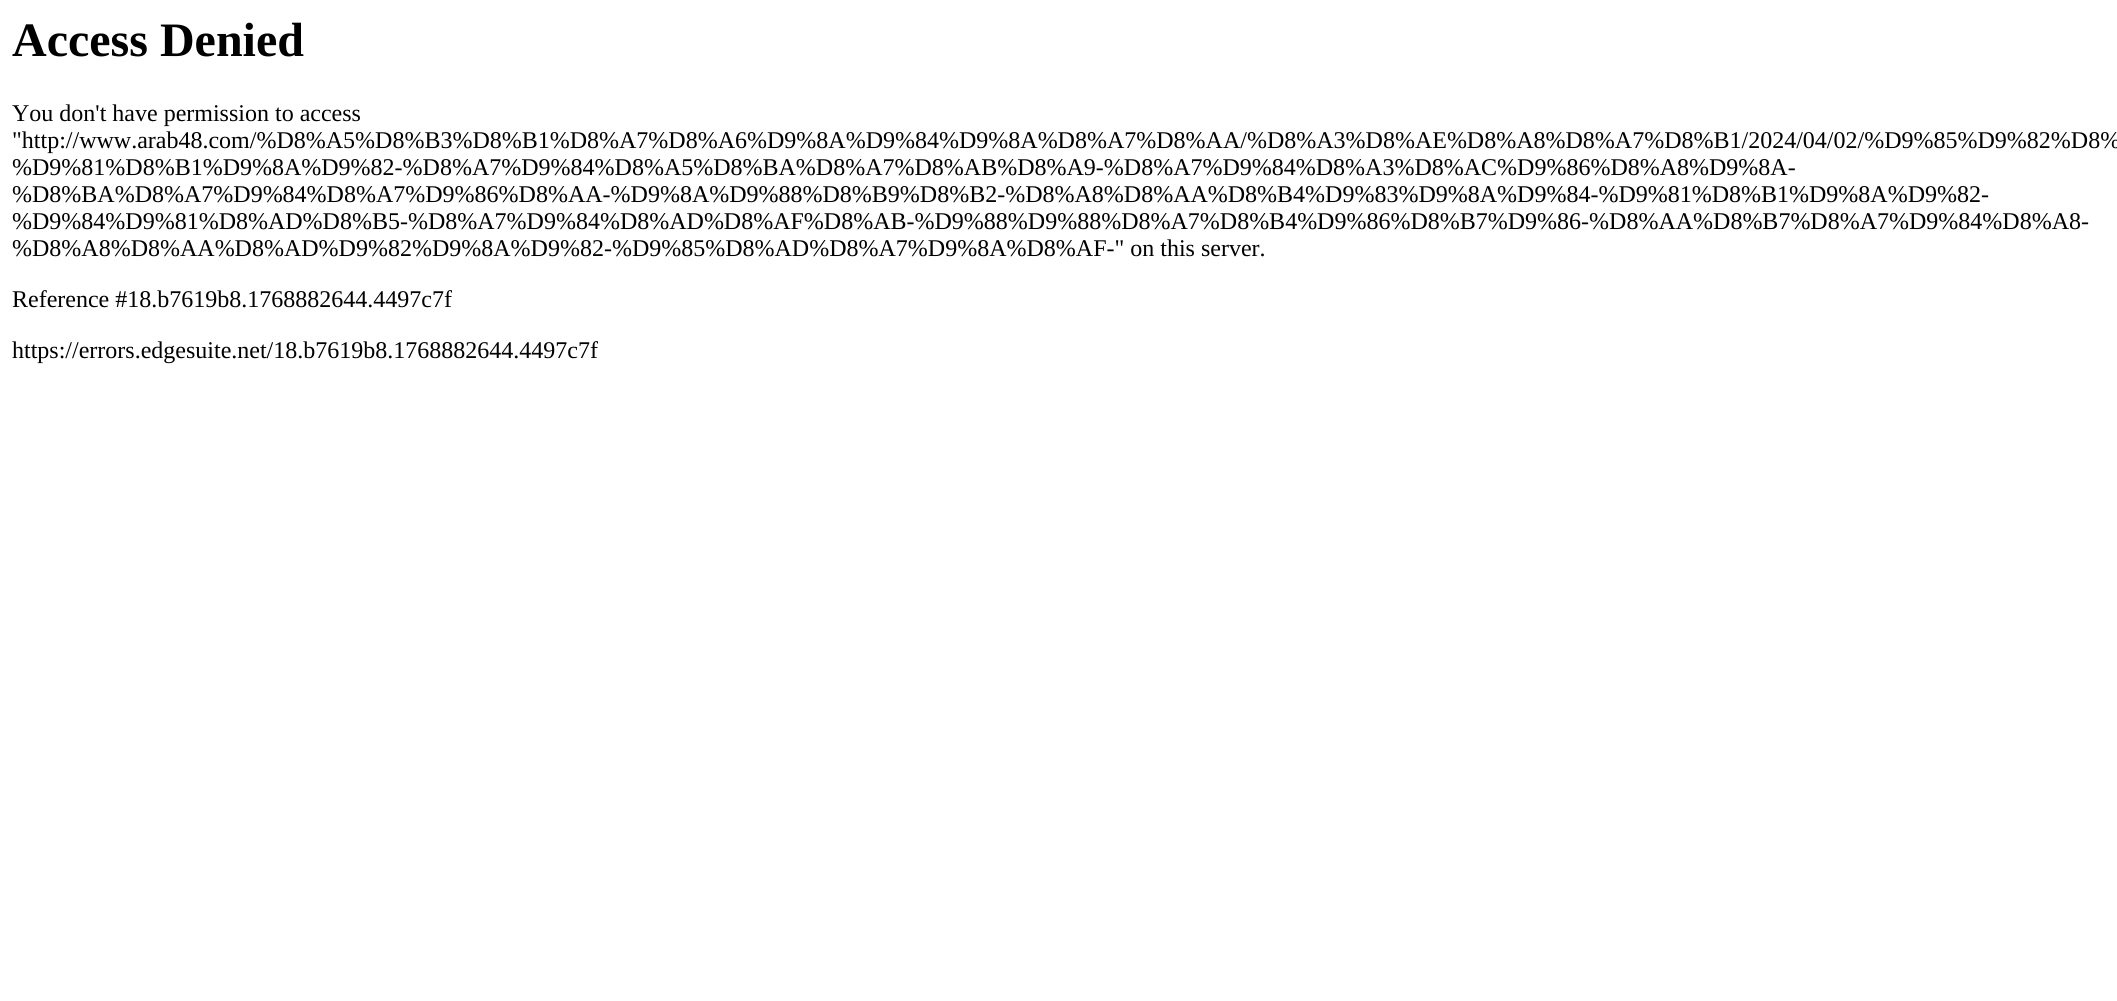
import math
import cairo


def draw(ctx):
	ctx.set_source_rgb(1, 1, 1)
	ctx.paint()
	ctx.select_font_face('Liberation Serif', cairo.FONT_SLANT_NORMAL, cairo.FONT_WEIGHT_BOLD)
	ctx.set_font_size(48)
	ctx.set_source_rgb(0, 0, 0)
	ctx.move_to(12, 56)
	ctx.show_text('Access Denied')
	ctx.select_font_face('Liberation Serif')
	ctx.set_font_size(24)
	for x, y, s in [
		(12, 121, 'You don\'t have permission to access'),
		(12, 148, '"http://www.arab48.com/%D8%A5%D8%B3%D8%B1%D8%A7%D8%A6%D9%8A%D9%84%D9%8A%D8%A7%D8%AA/%D8%A3%D8%AE%D8%A8%D8%A7%D8%B1/2024/04/02/%D9%85%D9%82%D8%'),
		(12, 175, '%D9%81%D8%B1%D9%8A%D9%82-%D8%A7%D9%84%D8%A5%D8%BA%D8%A7%D8%AB%D8%A9-%D8%A7%D9%84%D8%A3%D8%AC%D9%86%D8%A8%D9%8A-'),
		(12, 202, '%D8%BA%D8%A7%D9%84%D8%A7%D9%86%D8%AA-%D9%8A%D9%88%D8%B9%D8%B2-%D8%A8%D8%AA%D8%B4%D9%83%D9%8A%D9%84-%D9%81%D8%B1%D9%8A%D9%82-'),
		(12, 229, '%D9%84%D9%81%D8%AD%D8%B5-%D8%A7%D9%84%D8%AD%D8%AF%D8%AB-%D9%88%D9%88%D8%A7%D8%B4%D9%86%D8%B7%D9%86-%D8%AA%D8%B7%D8%A7%D9%84%D8%A8-'),
		(12, 256, '%D8%A8%D8%AA%D8%AD%D9%82%D9%8A%D9%82-%D9%85%D8%AD%D8%A7%D9%8A%D8%AF-" on this server.'),
		(12, 307, 'Reference #18.b7619b8.1768882644.4497c7f'),
		(12, 358, 'https://errors.edgesuite.net/18.b7619b8.1768882644.4497c7f'),
	]:
		ctx.move_to(x, y)
		ctx.show_text(s)


surface = cairo.ImageSurface(cairo.FORMAT_RGB24, 2117, 1001)
ctx = cairo.Context(surface)
options = cairo.FontOptions()
options.set_hint_metrics(cairo.HINT_METRICS_OFF)
options.set_hint_style(cairo.HINT_STYLE_NONE)
ctx.set_font_options(options)
ctx.set_miter_limit(4)
draw(ctx)
surface.write_to_png('image.png')
